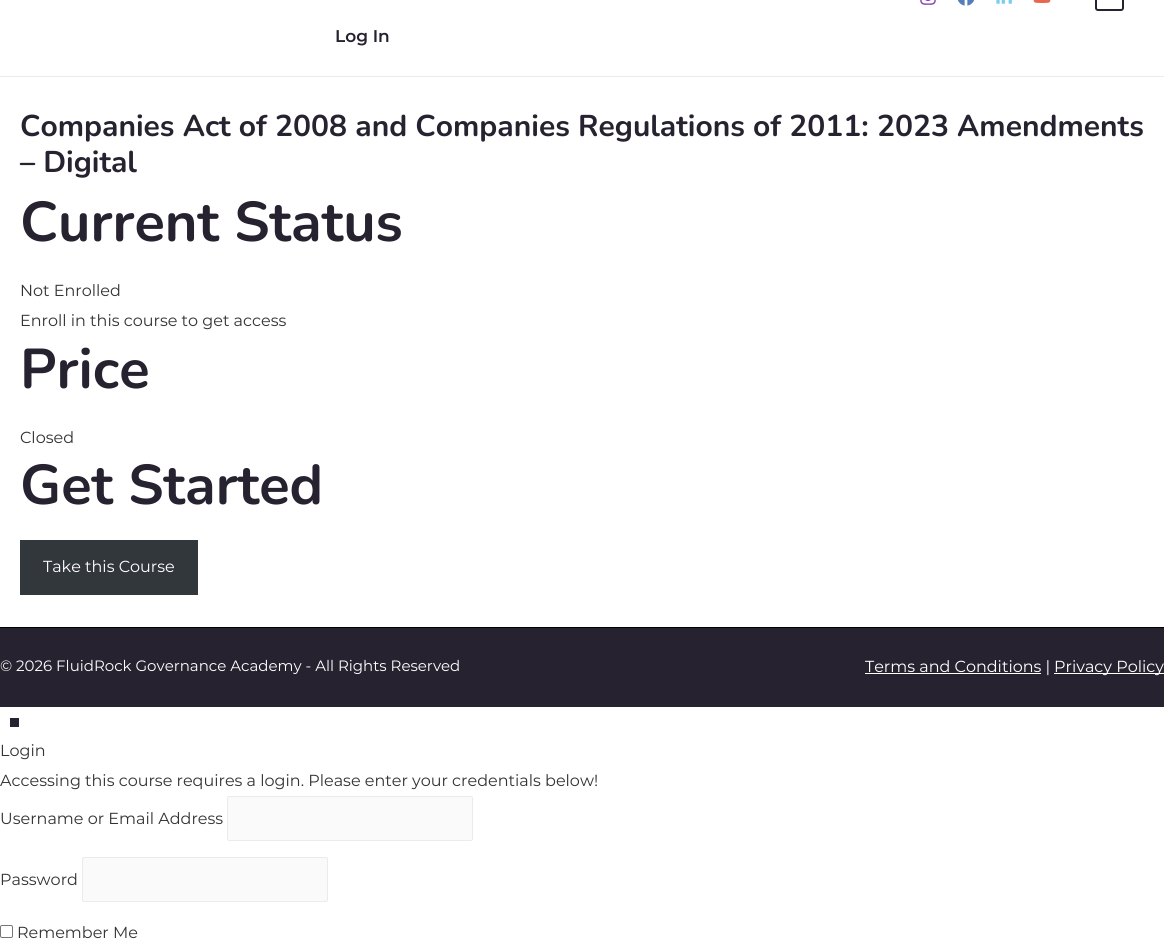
import math
import cairo


def round_path(ctx, x, y, w, h, r):
	ctx.new_sub_path()
	for i, (u, v) in enumerate([(x + w - r, y + h - r), (x + r, y + h - r), (x + r, y + r), (x + w - r, y + r)]):
		ctx.arc(u, v, r, i * math.pi / 2, (i + 1) * math.pi / 2)
	ctx.close_path()

def paste(ctx, path, x, y, w, h):
	ctx.save()
	ctx.set_source_surface(cairo.ImageSurface.create_from_png(path), x, y)
	ctx.rectangle(x, y, w, h)
	ctx.fill()
	ctx.restore()

def draw(ctx):
	ctx.set_source_rgb(1, 1, 1)
	ctx.paint()
	ctx.set_source_rgb(0.918, 0.918, 0.918)
	ctx.rectangle(0, 76, 1164, 1)
	ctx.fill()
	paste(ctx, 'media/1.png', 920, 0, 16, 5)
	paste(ctx, 'media/2.png', 957, 0, 18, 6)
	paste(ctx, 'media/3.png', 996, 0, 16, 4)
	paste(ctx, 'media/4.png', 1033, 0, 18, 3)
	round_path(ctx, 1096, -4, 27, 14, 2)
	ctx.set_source_rgb(0.149, 0.133, 0.184)
	ctx.stroke()
	ctx.select_font_face('Montserrat SemiBold')
	ctx.set_font_size(17)
	ctx.move_to(335, 42)
	ctx.show_text('Log In')
	ctx.select_font_face('Nunito ExtraLight')
	ctx.set_font_size(30)
	ctx.move_to(20, 136)
	ctx.show_text('Companies Act of 2008 and Companies Regulations of 2011: 2023 Amendments')
	ctx.move_to(20, 172)
	ctx.show_text('– Digital')
	ctx.set_font_size(56)
	ctx.move_to(20, 241)
	ctx.show_text('Current Status')
	ctx.select_font_face('Montserrat')
	ctx.set_font_size(16)
	ctx.set_source_rgb(0.2, 0.2, 0.2)
	ctx.move_to(20, 296)
	ctx.show_text('Not Enrolled')
	ctx.move_to(20, 326)
	ctx.show_text('Enroll in this course to get access')
	ctx.select_font_face('Nunito ExtraLight')
	ctx.set_font_size(56)
	ctx.set_source_rgb(0.149, 0.133, 0.184)
	ctx.move_to(20, 388)
	ctx.show_text('Price')
	ctx.select_font_face('Montserrat')
	ctx.set_font_size(16)
	ctx.set_source_rgb(0.2, 0.2, 0.2)
	ctx.move_to(20, 443)
	ctx.show_text('Closed')
	ctx.select_font_face('Nunito ExtraLight')
	ctx.set_font_size(56)
	ctx.set_source_rgb(0.149, 0.133, 0.184)
	ctx.move_to(20, 504)
	ctx.show_text('Get Started')
	ctx.set_source_rgb(0.196, 0.216, 0.235)
	ctx.rectangle(20, 540, 178, 55)
	ctx.fill()
	ctx.select_font_face('Montserrat')
	ctx.set_font_size(16)
	ctx.set_source_rgb(1, 1, 1)
	ctx.move_to(43, 572)
	ctx.show_text('Take this Course')
	ctx.set_source_rgb(0.149, 0.133, 0.184)
	ctx.rectangle(0, 628, 1164, 79)
	ctx.fill()
	ctx.set_source_rgb(0, 0, 0)
	ctx.rectangle(0, 627, 1164, 1)
	ctx.fill()
	ctx.set_font_size(15)
	ctx.set_source_rgb(1, 1, 1)
	ctx.move_to(0, 671)
	ctx.show_text('© 2026 FluidRock Governance Academy - All Rights Reserved')
	ctx.rectangle(865, 673, 176, 1)
	ctx.fill()
	ctx.set_font_size(16)
	ctx.move_to(865, 672)
	ctx.show_text('Terms and Conditions |')
	ctx.rectangle(1054, 673, 110, 1)
	ctx.fill()
	ctx.move_to(1054, 672)
	ctx.show_text('Privacy Policy')
	ctx.set_source_rgb(0.149, 0.133, 0.184)
	ctx.rectangle(10, 718, 9, 9)
	ctx.fill()
	ctx.set_source_rgb(0.2, 0.2, 0.2)
	for x, y, s in [
		(0, 756, 'Login'),
		(0, 786, 'Accessing this course requires a login. Please enter your credentials below!'),
		(0, 824, 'Username or Email Address'),
	]:
		ctx.move_to(x, y)
		ctx.show_text(s)
	ctx.set_source_rgb(0.98, 0.98, 0.98)
	round_path(ctx, 227.5, 796.5, 245, 44, 1.5)
	ctx.fill_preserve()
	ctx.set_source_rgb(0.918, 0.918, 0.918)
	ctx.set_line_width(1)
	ctx.stroke()
	ctx.set_source_rgb(0.2, 0.2, 0.2)
	ctx.move_to(0, 885)
	ctx.show_text('Password')
	ctx.set_source_rgb(0.98, 0.98, 0.98)
	round_path(ctx, 82.5, 857.5, 245, 44, 1.5)
	ctx.fill_preserve()
	ctx.set_source_rgb(0.918, 0.918, 0.918)
	ctx.stroke()
	round_path(ctx, 0.5, 925.5, 12, 12, 1.5)
	ctx.set_source_rgb(0.463, 0.463, 0.463)
	ctx.stroke()
	ctx.set_source_rgb(0.2, 0.2, 0.2)
	ctx.move_to(17, 938)
	ctx.show_text('Remember Me')


surface = cairo.ImageSurface(cairo.FORMAT_RGB24, 1164, 942)
ctx = cairo.Context(surface)
options = cairo.FontOptions()
options.set_hint_metrics(cairo.HINT_METRICS_OFF)
options.set_hint_style(cairo.HINT_STYLE_NONE)
ctx.set_font_options(options)
ctx.set_miter_limit(4)
draw(ctx)
surface.write_to_png('image.png')
